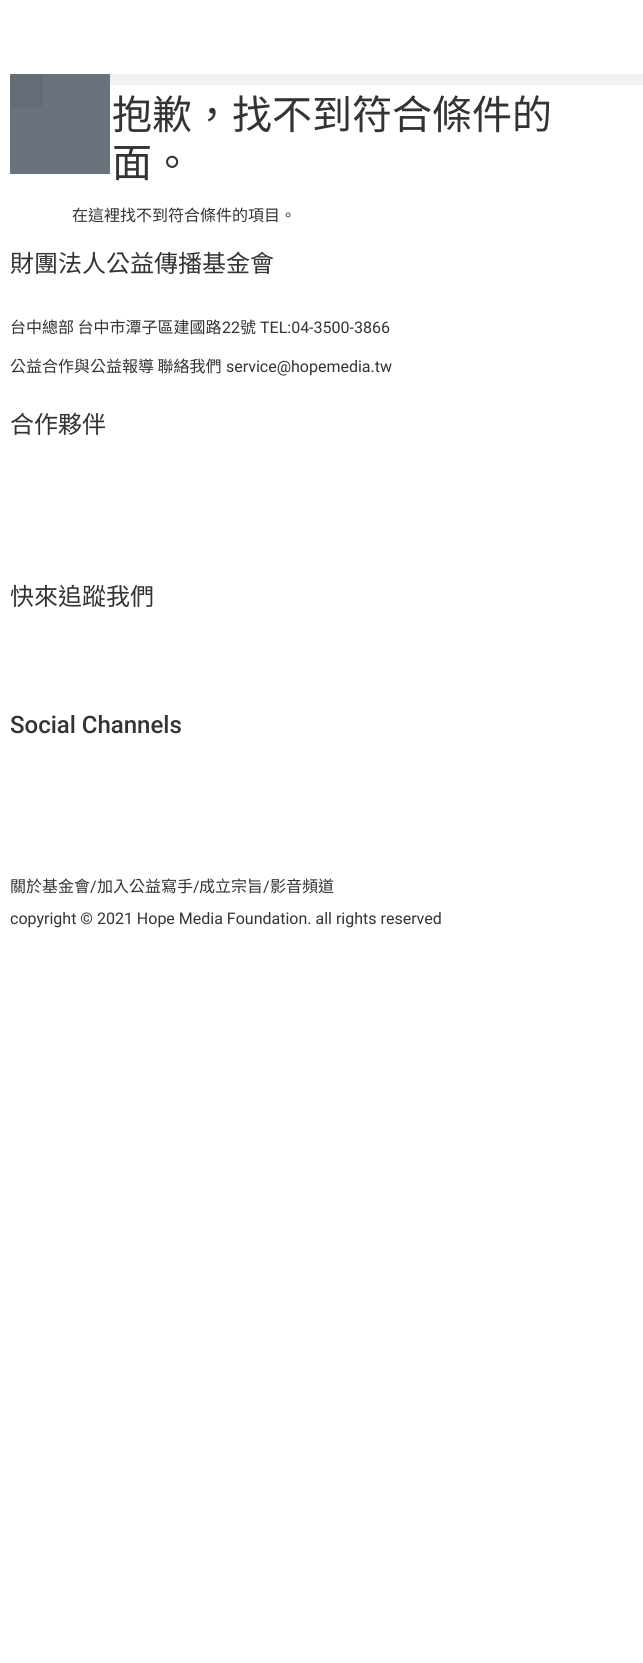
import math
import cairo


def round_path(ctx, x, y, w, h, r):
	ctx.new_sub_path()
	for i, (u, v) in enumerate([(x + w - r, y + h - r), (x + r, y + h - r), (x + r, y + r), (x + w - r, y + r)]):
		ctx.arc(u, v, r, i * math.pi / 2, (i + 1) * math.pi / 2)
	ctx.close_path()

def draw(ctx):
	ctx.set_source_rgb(1, 1, 1)
	ctx.paint()
	ctx.set_source_rgb(0.412, 0.447, 0.49)
	ctx.rectangle(10, 74, 100, 100)
	ctx.fill()
	ctx.set_source_rgb(0.392, 0.424, 0.467)
	round_path(ctx, 10, 74, 33, 33, 3)
	ctx.fill()
	ctx.set_source_rgb(0.949, 0.949, 0.949)
	ctx.rectangle(110, 74, 533, 11)
	ctx.fill()
	ctx.select_font_face('Noto Sans CJK TC')
	ctx.set_font_size(40)
	ctx.set_source_rgb(0.2, 0.2, 0.2)
	ctx.move_to(112, 129)
	ctx.show_text('抱歉，找不到符合條件的')
	ctx.move_to(112, 177)
	ctx.show_text('面。')
	ctx.set_font_size(16)
	ctx.move_to(72, 221)
	ctx.show_text('在這裡找不到符合條件的項目。')
	ctx.set_font_size(24)
	ctx.move_to(10, 272)
	ctx.show_text('財團法人公益傳播基金會')
	ctx.set_font_size(16)
	ctx.move_to(10, 333)
	ctx.show_text('台中總部 台中市潭子區建國路')
	ctx.select_font_face('Roboto')
	ctx.move_to(222, 333)
	ctx.show_text('22')
	ctx.select_font_face('Noto Sans CJK TC')
	ctx.move_to(240, 333)
	ctx.show_text('號')
	ctx.select_font_face('Roboto')
	ctx.move_to(260, 333)
	ctx.show_text('TEL:04-3500-3866')
	ctx.select_font_face('Noto Sans CJK TC')
	ctx.move_to(10, 372)
	ctx.show_text('公益合作與公益報導 聯絡我們')
	ctx.select_font_face('Roboto')
	ctx.move_to(226, 372)
	ctx.show_text('service@hopemedia.tw')
	ctx.select_font_face('Noto Sans CJK TC')
	ctx.set_font_size(24)
	ctx.move_to(10, 433)
	ctx.show_text('合作夥伴')
	ctx.move_to(10, 605)
	ctx.show_text('快來追蹤我們')
	ctx.select_font_face('Roboto Medium')
	ctx.move_to(10, 733)
	ctx.show_text('Social Channels')
	ctx.select_font_face('Noto Sans CJK TC')
	ctx.set_font_size(16)
	ctx.move_to(10, 892)
	ctx.show_text('關於基金會')
	ctx.select_font_face('Roboto')
	ctx.move_to(90, 892)
	ctx.show_text('/')
	ctx.select_font_face('Noto Sans CJK TC')
	ctx.move_to(97, 892)
	ctx.show_text('加入公益寫手')
	ctx.select_font_face('Roboto')
	ctx.move_to(193, 892)
	ctx.show_text('/')
	ctx.select_font_face('Noto Sans CJK TC')
	ctx.move_to(199, 892)
	ctx.show_text('成立宗旨')
	ctx.select_font_face('Roboto')
	ctx.move_to(263, 892)
	ctx.show_text('/')
	ctx.select_font_face('Noto Sans CJK TC')
	ctx.move_to(270, 892)
	ctx.show_text('影音頻道')
	ctx.select_font_face('Roboto')
	ctx.move_to(10, 924)
	ctx.show_text('copyright © 2021 Hope Media Foundation. all rights reserved')


surface = cairo.ImageSurface(cairo.FORMAT_RGB24, 643, 1663)
ctx = cairo.Context(surface)
options = cairo.FontOptions()
options.set_hint_metrics(cairo.HINT_METRICS_OFF)
options.set_hint_style(cairo.HINT_STYLE_NONE)
ctx.set_font_options(options)
ctx.set_miter_limit(4)
draw(ctx)
surface.write_to_png('image.png')
